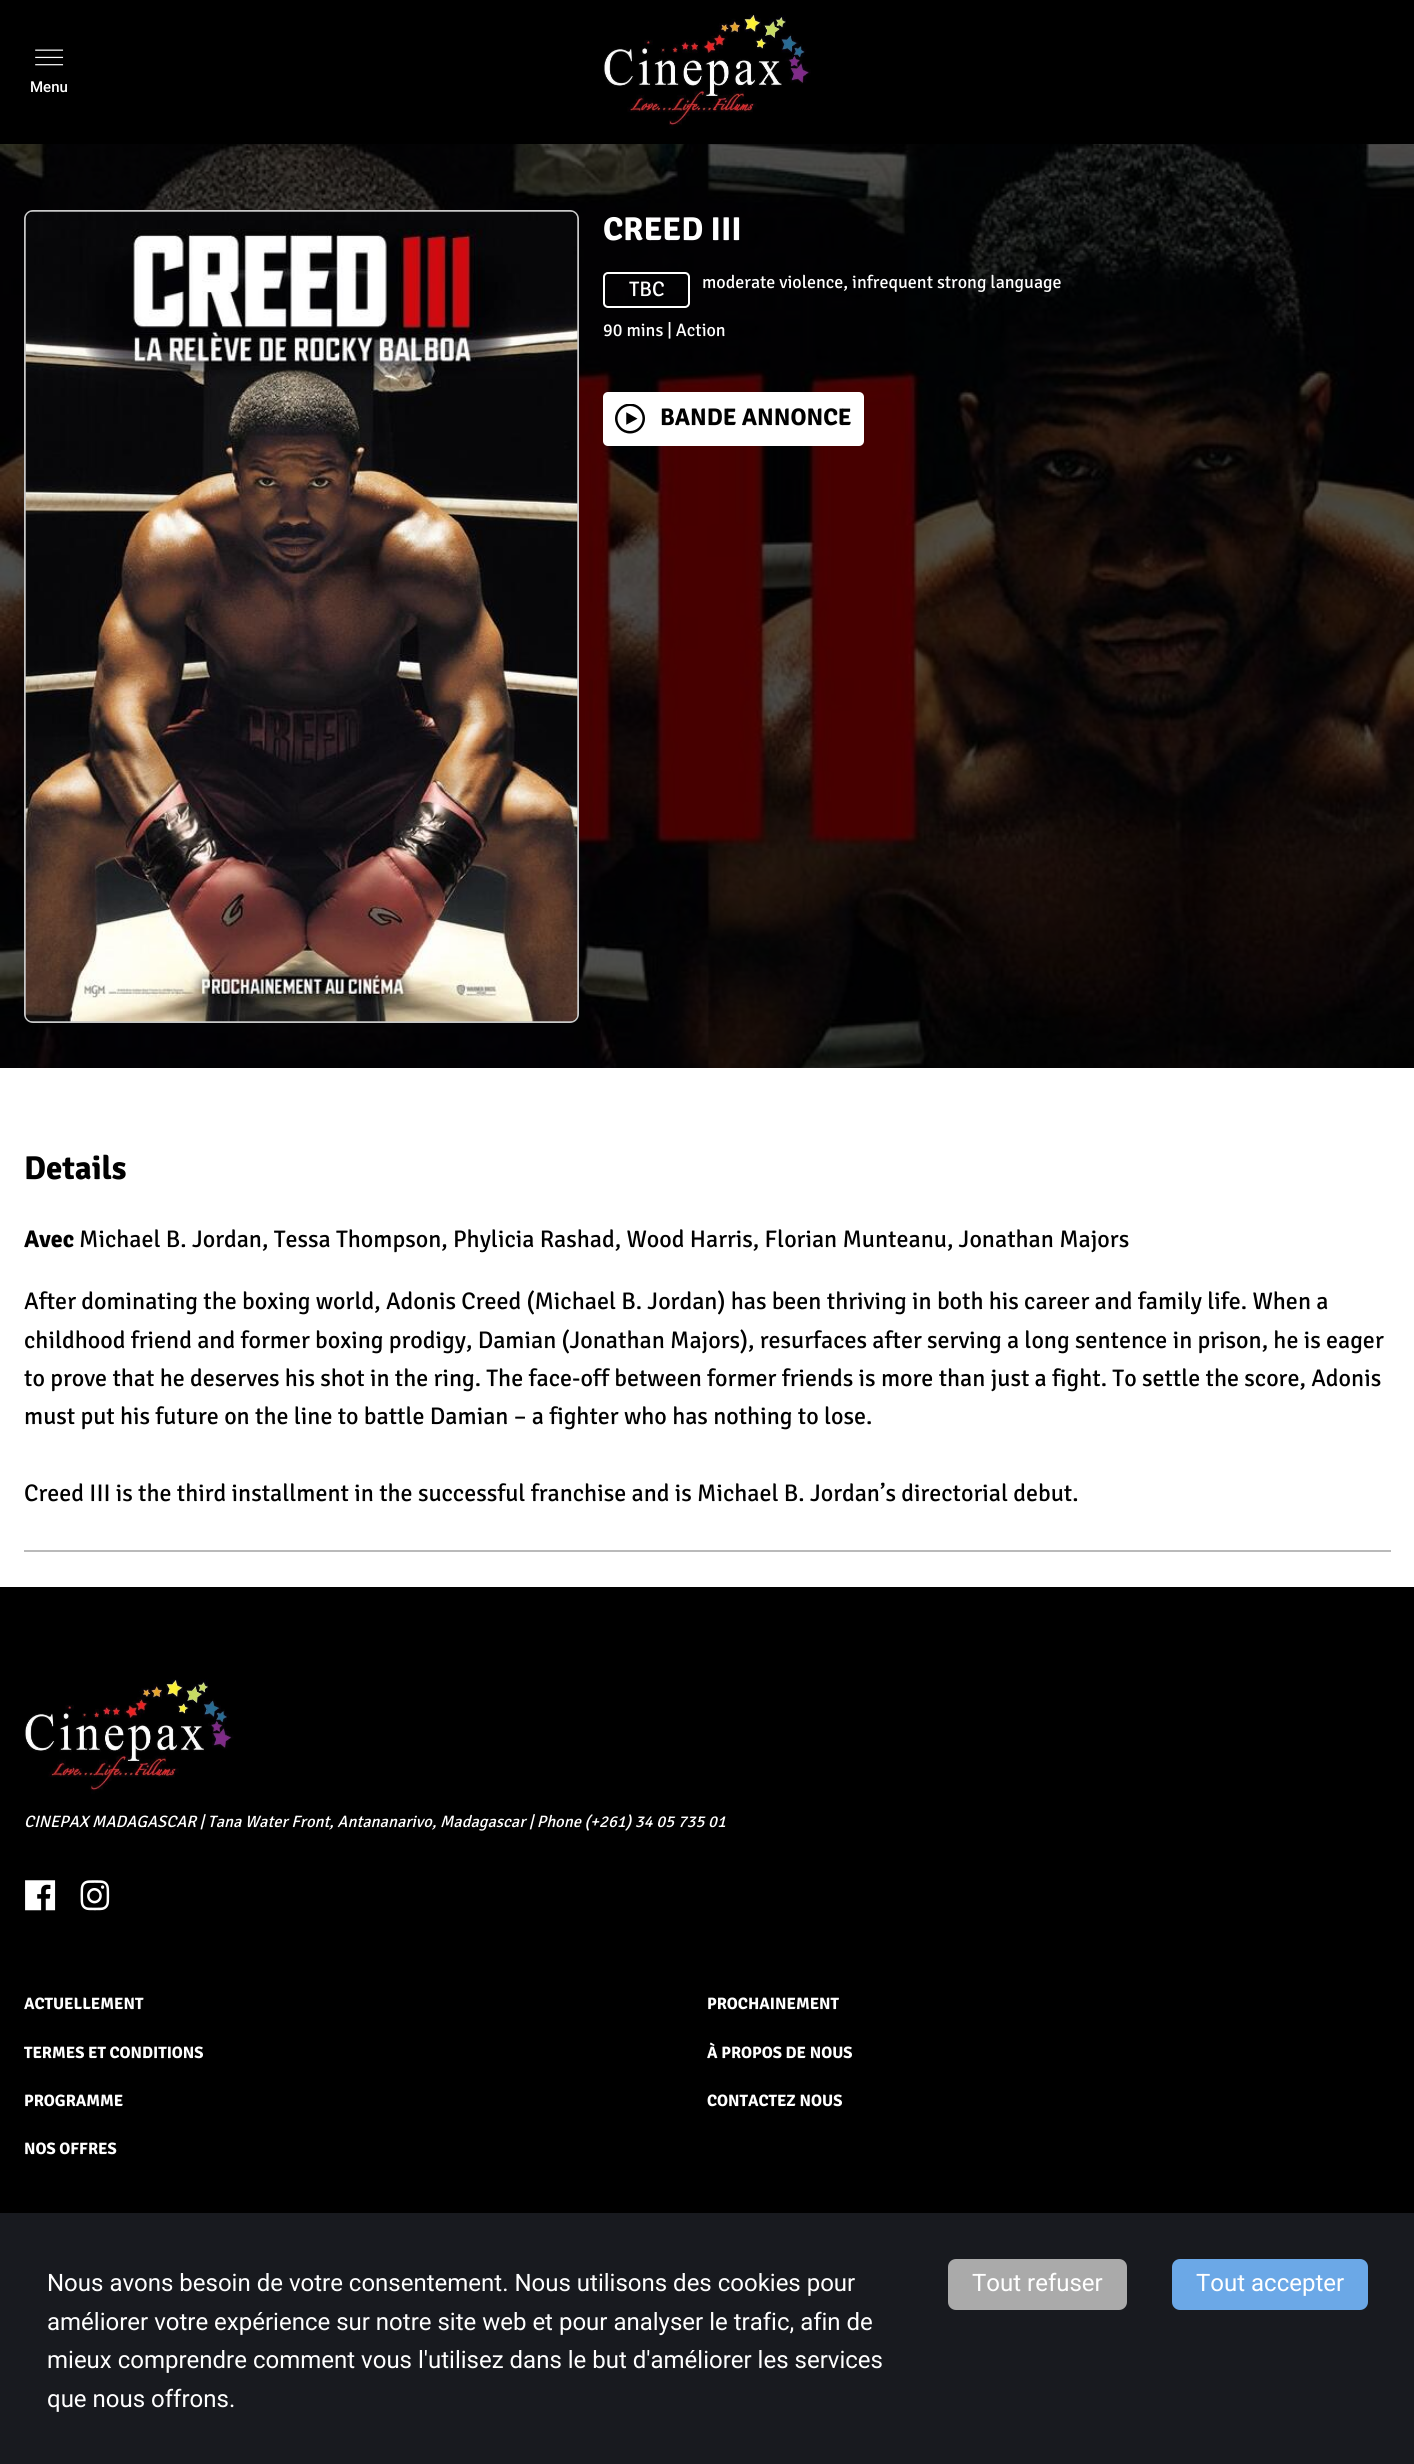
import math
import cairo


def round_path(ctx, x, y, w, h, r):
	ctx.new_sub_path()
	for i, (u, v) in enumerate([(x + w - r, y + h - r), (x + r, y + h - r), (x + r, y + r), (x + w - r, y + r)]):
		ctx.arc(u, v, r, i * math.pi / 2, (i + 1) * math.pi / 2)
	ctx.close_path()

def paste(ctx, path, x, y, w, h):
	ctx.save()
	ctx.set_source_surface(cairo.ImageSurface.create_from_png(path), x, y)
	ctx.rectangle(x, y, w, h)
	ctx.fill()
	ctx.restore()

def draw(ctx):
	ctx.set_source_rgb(1, 1, 1)
	ctx.paint()
	ctx.set_source_rgb(0, 0, 0)
	ctx.rectangle(0, 0, 1414, 144)
	ctx.fill()
	paste(ctx, 'media/1.png', 35, 49, 29, 17)
	ctx.select_font_face('Roboto Medium')
	ctx.set_font_size(15)
	ctx.set_source_rgb(1, 1, 1)
	ctx.move_to(30, 92)
	ctx.show_text('Menu')
	paste(ctx, 'media/2.png', 603, 14, 208, 115)
	paste(ctx, 'media/3.png', 0, 144, 1414, 924)
	round_path(ctx, 25, 211, 553, 811, 8)
	ctx.set_source_rgb(0.788, 0.788, 0.788)
	ctx.stroke()
	paste(ctx, 'media/4.png', 25, 211, 553, 811)
	ctx.select_font_face('Signika', cairo.FONT_SLANT_NORMAL, cairo.FONT_WEIGHT_BOLD)
	ctx.set_font_size(33)
	ctx.set_source_rgb(1, 1, 1)
	ctx.move_to(603, 240)
	ctx.show_text('CREED III')
	round_path(ctx, 604, 273, 85, 34, 4)
	ctx.stroke()
	ctx.select_font_face('Signika')
	ctx.set_font_size(21)
	ctx.move_to(629, 296)
	ctx.show_text('TBC')
	ctx.set_font_size(18)
	ctx.move_to(702, 288)
	ctx.show_text('moderate violence, infrequent strong language')
	ctx.move_to(603, 336)
	ctx.show_text('90 mins | Action')
	round_path(ctx, 603, 392, 261, 54, 5)
	ctx.fill()
	paste(ctx, 'media/5.png', 615, 404, 30, 30)
	ctx.select_font_face('Signika', cairo.FONT_SLANT_NORMAL, cairo.FONT_WEIGHT_BOLD)
	ctx.set_font_size(24)
	ctx.set_source_rgb(0.004, 0.004, 0.004)
	ctx.move_to(660, 425)
	ctx.show_text('BANDE ANNONCE')
	ctx.set_font_size(33)
	ctx.move_to(24, 1179)
	ctx.show_text('Details')
	ctx.set_font_size(24)
	ctx.move_to(24, 1247)
	ctx.show_text('Avec')
	ctx.select_font_face('Signika')
	for x, y, s in [
		(79, 1247, 'Michael B. Jordan, Tessa Thompson, Phylicia Rashad, Wood Harris, Florian Munteanu, Jonathan Majors'),
		(24, 1309, 'After dominating the boxing world, Adonis Creed (Michael B. Jordan) has been thriving in both his career and family life. When a'),
		(24, 1348, 'childhood friend and former boxing prodigy, Damian (Jonathan Majors), resurfaces after serving a long sentence in prison, he is eager'),
		(24, 1386, 'to prove that he deserves his shot in the ring. The face-off between former friends is more than just a fight. To settle the score, Adonis'),
		(24, 1424, 'must put his future on the line to battle Damian – a fighter who has nothing to lose.'),
		(24, 1501, 'Creed III is the third installment in the successful franchise and is Michael B. Jordan’s directorial debut.'),
	]:
		ctx.move_to(x, y)
		ctx.show_text(s)
	ctx.set_source_rgb(0.729, 0.729, 0.729)
	ctx.rectangle(24, 1550, 1367, 2)
	ctx.fill()
	ctx.set_source_rgb(0, 0, 0)
	ctx.rectangle(0, 1587, 1414, 626)
	ctx.fill()
	paste(ctx, 'media/6.png', 24, 1679, 210, 115)
	ctx.select_font_face('Signika', cairo.FONT_SLANT_ITALIC)
	ctx.set_font_size(16.5)
	ctx.set_source_rgb(1, 1, 1)
	ctx.move_to(24, 1827)
	ctx.show_text('CINEPAX MADAGASCAR | Tana Water Front, Antananarivo, Madagascar | Phone (+261) 34 05 735 01')
	paste(ctx, 'media/7.png', 25, 1880, 31, 31)
	paste(ctx, 'media/8.png', 80, 1880, 30, 31)
	ctx.select_font_face('Signika', cairo.FONT_SLANT_NORMAL, cairo.FONT_WEIGHT_BOLD)
	for x, y, s in [
		(24, 2009, 'ACTUELLEMENT'),
		(707, 2009, 'PROCHAINEMENT'),
		(24, 2058, 'TERMES ET CONDITIONS'),
		(707, 2058, 'À PROPOS DE NOUS'),
		(24, 2106, 'PROGRAMME'),
		(707, 2106, 'CONTACTEZ NOUS'),
		(24, 2154, 'NOS OFFRES'),
	]:
		ctx.move_to(x, y)
		ctx.show_text(s)
	ctx.set_source_rgb(0.094, 0.102, 0.122)
	ctx.rectangle(0, 2213, 1414, 251)
	ctx.fill()
	ctx.select_font_face('Roboto')
	ctx.set_font_size(24)
	ctx.set_source_rgb(1, 1, 1)
	for x, y, s in [
		(47, 2291, 'Nous avons besoin de votre consentement. Nous utilisons des cookies pour'),
		(47, 2330, 'améliorer votre expérience sur notre site web et pour analyser le trafic, afin de'),
		(47, 2368, 'mieux comprendre comment vous l\'utilisez dans le but d\'améliorer les services'),
		(47, 2407, 'que nous offrons.'),
	]:
		ctx.move_to(x, y)
		ctx.show_text(s)
	ctx.set_source_rgb(0.667, 0.667, 0.667)
	round_path(ctx, 948, 2259, 179, 51, 8)
	ctx.fill()
	ctx.set_source_rgb(1, 1, 1)
	ctx.move_to(972, 2291)
	ctx.show_text('Tout refuser')
	ctx.set_source_rgb(0.42, 0.659, 0.906)
	round_path(ctx, 1172, 2259, 196, 51, 8)
	ctx.fill()
	ctx.set_source_rgb(1, 1, 1)
	ctx.move_to(1196, 2291)
	ctx.show_text('Tout accepter')


surface = cairo.ImageSurface(cairo.FORMAT_RGB24, 1414, 2464)
ctx = cairo.Context(surface)
options = cairo.FontOptions()
options.set_hint_metrics(cairo.HINT_METRICS_OFF)
options.set_hint_style(cairo.HINT_STYLE_NONE)
ctx.set_font_options(options)
ctx.set_miter_limit(4)
draw(ctx)
surface.write_to_png('image.png')
